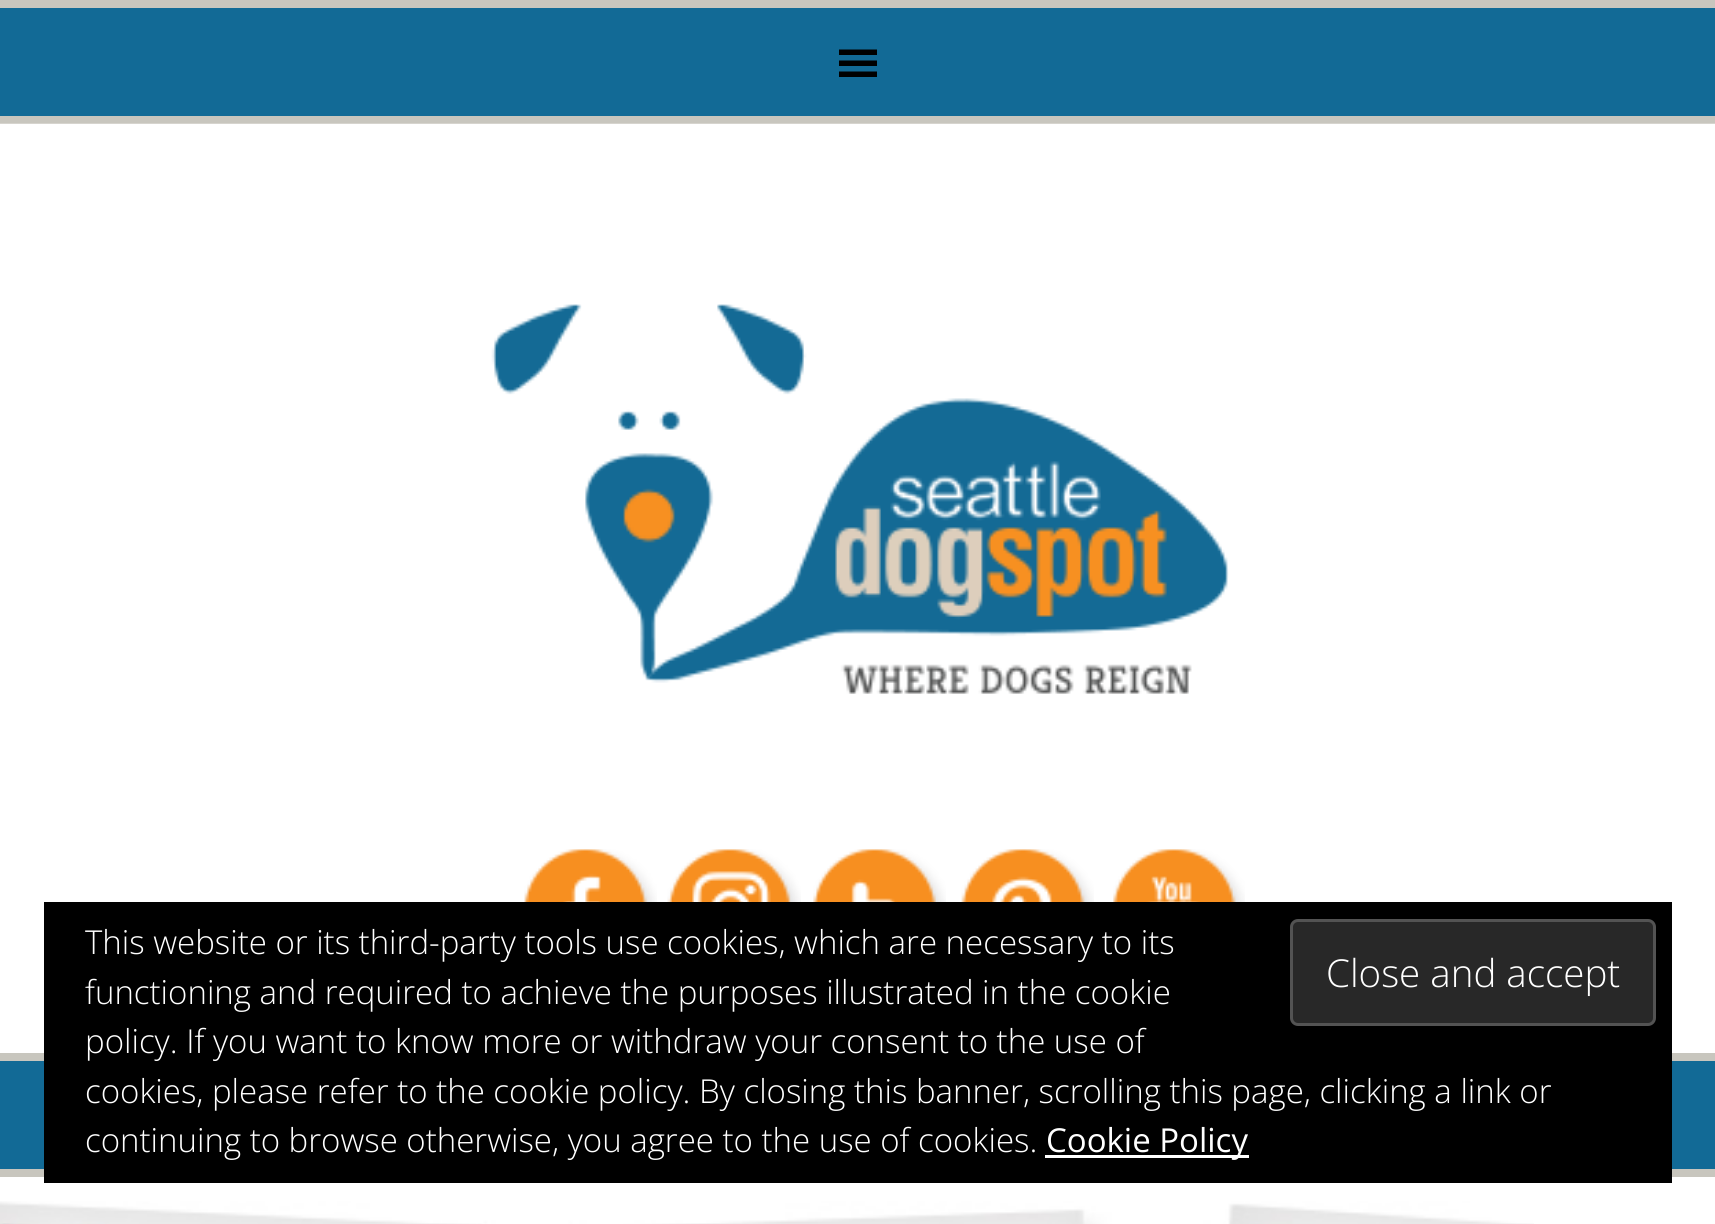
import math
import cairo


def round_path(ctx, x, y, w, h, r):
	ctx.new_sub_path()
	for i, (u, v) in enumerate([(x + w - r, y + h - r), (x + r, y + h - r), (x + r, y + r), (x + w - r, y + r)]):
		ctx.arc(u, v, r, i * math.pi / 2, (i + 1) * math.pi / 2)
	ctx.close_path()

def paste(ctx, path, x, y, w, h):
	ctx.save()
	ctx.set_source_surface(cairo.ImageSurface.create_from_png(path), x, y)
	ctx.rectangle(x, y, w, h)
	ctx.fill()
	ctx.restore()

def draw(ctx):
	ctx.set_source_rgb(1, 1, 1)
	ctx.paint()
	ctx.set_source_rgb(0.071, 0.416, 0.588)
	ctx.rectangle(0, 8, 1715, 108)
	ctx.fill()
	ctx.set_source_rgb(0.784, 0.776, 0.745)
	ctx.rectangle(0, 0, 1715, 8)
	ctx.rectangle(0, 116, 1715, 7)
	ctx.fill()
	ctx.set_source_rgb(0, 0, 0)
	ctx.new_path()
	ctx.move_to(839, 77)
	ctx.line_to(877, 77)
	ctx.line_to(877, 71.5)
	ctx.line_to(839, 71.5)
	ctx.close_path()
	ctx.move_to(839, 49.5)
	ctx.line_to(839, 55)
	ctx.line_to(877, 55)
	ctx.line_to(877, 49.5)
	ctx.close_path()
	ctx.move_to(839, 66)
	ctx.line_to(877, 66)
	ctx.line_to(877, 60.5)
	ctx.line_to(839, 60.5)
	ctx.close_path()
	ctx.fill()
	ctx.set_source_rgb(0.839, 0.831, 0.808)
	ctx.rectangle(0, 123, 1715, 1)
	ctx.fill()
	paste(ctx, 'media/1.png', 491, 304, 738, 390)
	paste(ctx, 'media/2.png', 524, 849, 133, 53)
	paste(ctx, 'media/3.png', 667, 849, 134, 53)
	paste(ctx, 'media/4.png', 813, 849, 133, 53)
	paste(ctx, 'media/5.png', 961, 849, 133, 53)
	paste(ctx, 'media/6.png', 1113, 849, 132, 53)
	ctx.set_source_rgb(0.071, 0.416, 0.588)
	ctx.rectangle(0, 1061, 1715, 108)
	ctx.fill()
	ctx.set_source_rgb(0.784, 0.776, 0.745)
	ctx.rectangle(0, 1053, 1715, 8)
	ctx.rectangle(0, 1169, 1715, 8)
	ctx.fill()
	paste(ctx, 'media/7.png', 0, 1201, 1534, 23)
	ctx.set_source_rgb(0, 0, 0)
	ctx.rectangle(44, 902, 1628, 281)
	ctx.fill()
	ctx.select_font_face('Open Sans Light')
	ctx.set_font_size(33)
	ctx.set_source_rgb(1, 1, 1)
	ctx.move_to(85, 954)
	ctx.show_text('This website or its third-party tools use cookies, which are necessary to its')
	ctx.move_to(85, 1004)
	ctx.show_text('functioning and required to achieve the purposes illustrated in the cookie')
	ctx.set_source_rgb(0.157, 0.157, 0.157)
	round_path(ctx, 1291.5, 920.5, 363, 104, 6.5)
	ctx.fill_preserve()
	ctx.set_source_rgb(0.325, 0.325, 0.325)
	ctx.set_line_width(3)
	ctx.stroke()
	ctx.set_font_size(38.5)
	ctx.set_source_rgb(1, 1, 1)
	ctx.move_to(1326, 987)
	ctx.show_text('Close and accept')
	ctx.set_font_size(33)
	for x, y, s in [
		(85, 1053, 'policy. If you want to know more or withdraw your consent to the use of'),
		(85, 1103, 'cookies, please refer to the cookie policy. By closing this banner, scrolling this page, clicking a link or'),
		(85, 1152, 'continuing to browse otherwise, you agree to the use of cookies.'),
	]:
		ctx.move_to(x, y)
		ctx.show_text(s)
	ctx.rectangle(1045, 1155, 204, 3)
	ctx.fill()
	ctx.select_font_face('Open Sans')
	ctx.move_to(1046, 1152)
	ctx.show_text('Cookie Policy')


surface = cairo.ImageSurface(cairo.FORMAT_RGB24, 1715, 1224)
ctx = cairo.Context(surface)
options = cairo.FontOptions()
options.set_hint_metrics(cairo.HINT_METRICS_OFF)
options.set_hint_style(cairo.HINT_STYLE_NONE)
ctx.set_font_options(options)
ctx.set_miter_limit(4)
draw(ctx)
surface.write_to_png('image.png')
